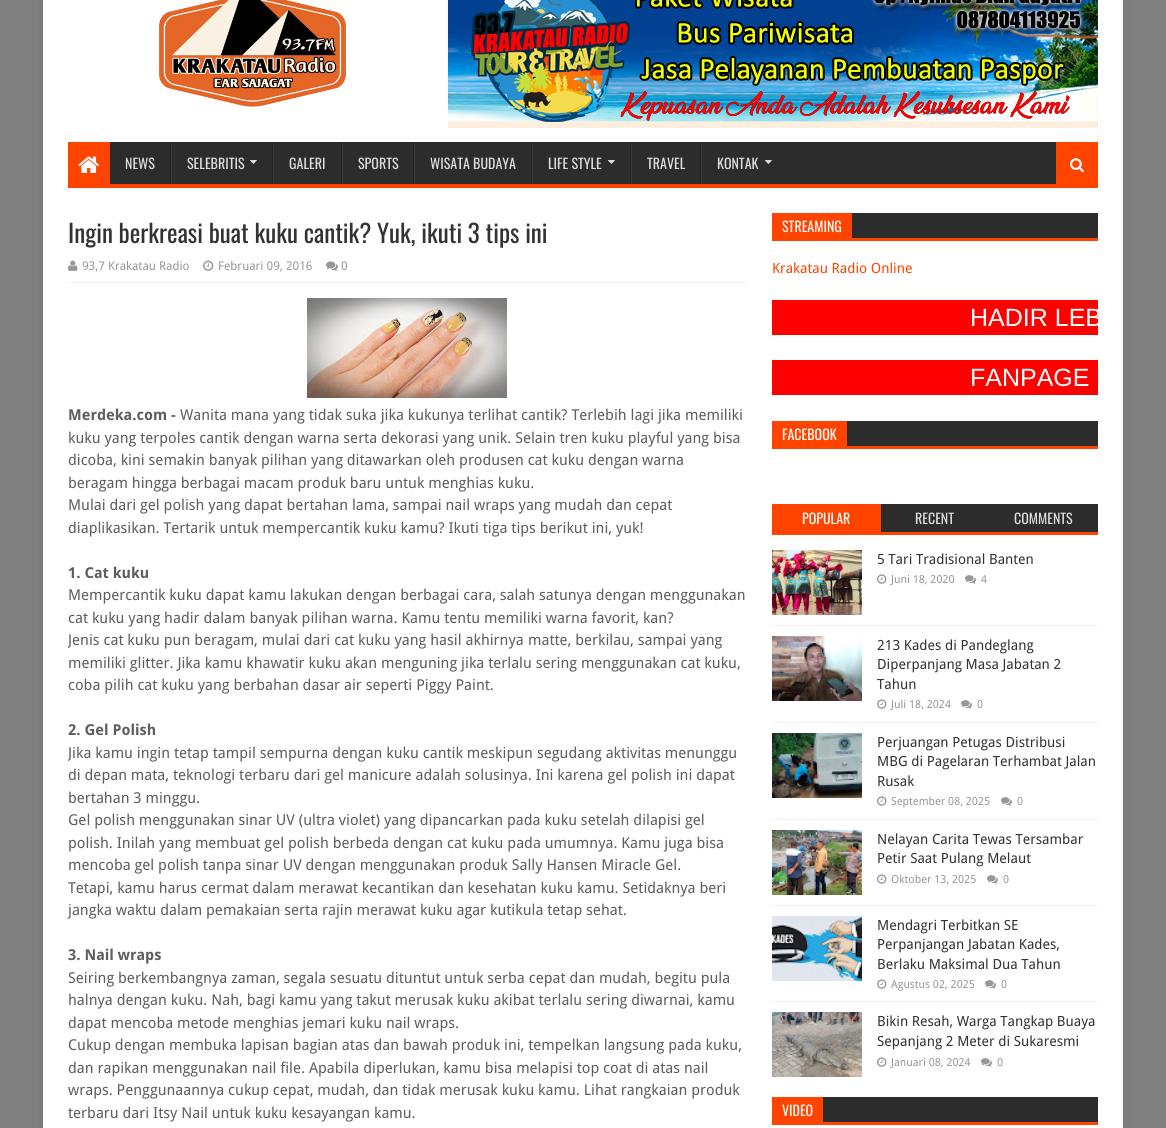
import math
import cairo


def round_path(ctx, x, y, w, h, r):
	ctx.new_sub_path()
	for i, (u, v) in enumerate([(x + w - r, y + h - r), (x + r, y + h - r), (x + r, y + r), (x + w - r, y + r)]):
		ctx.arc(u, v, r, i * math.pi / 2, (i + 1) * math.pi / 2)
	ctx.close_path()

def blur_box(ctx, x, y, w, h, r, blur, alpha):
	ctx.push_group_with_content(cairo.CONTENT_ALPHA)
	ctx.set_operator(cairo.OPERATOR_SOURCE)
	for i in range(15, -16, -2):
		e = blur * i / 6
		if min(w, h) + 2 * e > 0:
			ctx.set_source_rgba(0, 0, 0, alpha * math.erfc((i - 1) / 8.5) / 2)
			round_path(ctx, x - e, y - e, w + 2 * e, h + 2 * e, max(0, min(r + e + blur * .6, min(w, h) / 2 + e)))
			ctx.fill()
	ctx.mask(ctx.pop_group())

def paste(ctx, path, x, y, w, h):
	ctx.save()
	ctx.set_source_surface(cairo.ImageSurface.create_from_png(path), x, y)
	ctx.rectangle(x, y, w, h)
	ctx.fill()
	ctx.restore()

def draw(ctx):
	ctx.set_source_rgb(0.502, 0.502, 0.502)
	ctx.paint()
	ctx.set_source_rgb(0.196, 0.196, 0.196)
	blur_box(ctx, 43, -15, 1080, 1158, 0, 5, 0.17)
	ctx.set_source_rgb(1, 1, 1)
	ctx.rectangle(43, 0, 1080, 1128)
	ctx.fill()
	paste(ctx, 'media/1.png', 159, 0, 188, 107)
	paste(ctx, 'media/2.png', 448, 0, 650, 128)
	ctx.set_source_rgb(0.173, 0.173, 0.173)
	ctx.rectangle(110, 142, 946, 42)
	ctx.fill()
	ctx.set_source_rgb(1, 0.267, 0)
	ctx.rectangle(68, 184, 1030, 4)
	ctx.rectangle(68, 142, 42, 42)
	ctx.fill()
	paste(ctx, 'media/3.png', 78, 156, 21, 17)
	ctx.set_source_rgb(0.133, 0.133, 0.133)
	ctx.rectangle(170, 142, 1, 42)
	ctx.fill()
	ctx.select_font_face('Oswald')
	ctx.set_font_size(14)
	ctx.set_source_rgb(0.867, 0.867, 0.867)
	ctx.move_to(125, 169)
	ctx.show_text('NEWS')
	ctx.set_source_rgb(0.133, 0.133, 0.133)
	ctx.rectangle(272, 142, 1, 42)
	ctx.fill()
	ctx.set_source_rgb(0.224, 0.224, 0.224)
	ctx.rectangle(171, 142, 1, 42)
	ctx.fill()
	ctx.set_source_rgb(0.867, 0.867, 0.867)
	ctx.move_to(187, 169)
	ctx.show_text('SELEBRITIS')
	paste(ctx, 'media/4.png', 250, 160, 7, 4)
	ctx.set_source_rgb(0.133, 0.133, 0.133)
	ctx.rectangle(341, 142, 1, 42)
	ctx.fill()
	ctx.set_source_rgb(0.224, 0.224, 0.224)
	ctx.rectangle(273, 142, 1, 42)
	ctx.fill()
	ctx.set_source_rgb(0.867, 0.867, 0.867)
	ctx.move_to(289, 169)
	ctx.show_text('GALERI')
	ctx.set_source_rgb(0.133, 0.133, 0.133)
	ctx.rectangle(413, 142, 1, 42)
	ctx.fill()
	ctx.set_source_rgb(0.224, 0.224, 0.224)
	ctx.rectangle(342, 142, 1, 42)
	ctx.fill()
	ctx.set_source_rgb(0.867, 0.867, 0.867)
	ctx.move_to(358, 169)
	ctx.show_text('SPORTS')
	ctx.set_source_rgb(0.133, 0.133, 0.133)
	ctx.rectangle(531, 142, 1, 42)
	ctx.fill()
	ctx.set_source_rgb(0.224, 0.224, 0.224)
	ctx.rectangle(414, 142, 1, 42)
	ctx.fill()
	ctx.set_source_rgb(0.867, 0.867, 0.867)
	ctx.move_to(430, 169)
	ctx.show_text('WISATA BUDAYA')
	ctx.set_source_rgb(0.133, 0.133, 0.133)
	ctx.rectangle(630, 142, 1, 42)
	ctx.fill()
	ctx.set_source_rgb(0.224, 0.224, 0.224)
	ctx.rectangle(532, 142, 1, 42)
	ctx.fill()
	ctx.set_source_rgb(0.867, 0.867, 0.867)
	ctx.move_to(548, 169)
	ctx.show_text('LIFE STYLE')
	paste(ctx, 'media/4.png', 608, 160, 7, 4)
	ctx.set_source_rgb(0.133, 0.133, 0.133)
	ctx.rectangle(700, 142, 1, 42)
	ctx.fill()
	ctx.set_source_rgb(0.224, 0.224, 0.224)
	ctx.rectangle(631, 142, 1, 42)
	ctx.fill()
	ctx.set_source_rgb(0.867, 0.867, 0.867)
	ctx.move_to(647, 169)
	ctx.show_text('TRAVEL')
	ctx.set_source_rgb(0.224, 0.224, 0.224)
	ctx.rectangle(701, 142, 1, 42)
	ctx.fill()
	ctx.set_source_rgb(0.867, 0.867, 0.867)
	ctx.move_to(717, 169)
	ctx.show_text('KONTAK')
	paste(ctx, 'media/4.png', 765, 160, 7, 4)
	ctx.set_source_rgb(1, 0.267, 0)
	ctx.rectangle(1056, 142, 42, 42)
	ctx.fill()
	paste(ctx, 'media/5.png', 1070, 158, 14, 15)
	ctx.set_font_size(25)
	ctx.set_source_rgb(0.2, 0.2, 0.2)
	ctx.move_to(68, 243)
	ctx.show_text('Ingin berkreasi buat kuku cantik? Yuk, ikuti 3 tips ini')
	ctx.set_source_rgb(0.949, 0.949, 0.949)
	ctx.rectangle(68, 282, 678, 1)
	ctx.fill()
	paste(ctx, 'media/6.png', 68, 260, 10, 11)
	ctx.select_font_face('Droid Sans')
	ctx.set_font_size(12)
	ctx.set_source_rgb(0.592, 0.592, 0.592)
	ctx.move_to(82, 270)
	ctx.show_text('93,7 Krakatau Radio')
	paste(ctx, 'media/7.png', 203, 260, 11, 11)
	ctx.move_to(218, 270)
	ctx.show_text('Februari 09, 2016')
	paste(ctx, 'media/8.png', 326, 261, 12, 10)
	ctx.move_to(341, 270)
	ctx.show_text('0')
	paste(ctx, 'media/9.png', 307, 298, 200, 100)
	ctx.select_font_face('Droid Sans', cairo.FONT_SLANT_NORMAL, cairo.FONT_WEIGHT_BOLD)
	ctx.set_font_size(15)
	ctx.set_source_rgb(0.369, 0.369, 0.369)
	ctx.move_to(68, 420)
	ctx.show_text('Merdeka.com -')
	ctx.select_font_face('Droid Sans')
	for x, y, s in [
		(180, 420, 'Wanita mana yang tidak suka jika kukunya terlihat cantik? Terlebih lagi jika memiliki'),
		(68, 443, 'kuku yang terpoles cantik dengan warna serta dekorasi yang unik. Selain tren kuku playful yang bisa'),
		(68, 465, 'dicoba, kini semakin banyak pilihan yang ditawarkan oleh produsen cat kuku dengan warna'),
		(68, 488, 'beragam hingga berbagai macam produk baru untuk menghias kuku.'),
		(68, 510, 'Mulai dari gel polish yang dapat bertahan lama, sampai nail wraps yang mudah dan cepat'),
		(68, 533, 'diaplikasikan. Tertarik untuk mempercantik kuku kamu? Ikuti tiga tips berikut ini, yuk!'),
	]:
		ctx.move_to(x, y)
		ctx.show_text(s)
	ctx.select_font_face('Droid Sans', cairo.FONT_SLANT_NORMAL, cairo.FONT_WEIGHT_BOLD)
	ctx.move_to(68, 578)
	ctx.show_text('1. Cat kuku')
	ctx.select_font_face('Droid Sans')
	ctx.move_to(68, 600)
	ctx.show_text('Mempercantik kuku dapat kamu lakukan dengan berbagai cara, salah satunya dengan menggunakan')
	ctx.move_to(68, 623)
	ctx.show_text('cat kuku yang hadir dalam banyak pilihan warna. Kamu tentu memiliki warna favorit, kan?')
	ctx.save()
	ctx.rectangle(68, 298, 678, 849)
	ctx.clip()
	ctx.move_to(68, 645)
	ctx.show_text('Jenis cat kuku pun beragam, mulai dari cat kuku yang hasil akhirnya')
	ctx.restore()
	for x, y, s in [
		(528, 645, 'matte, berkilau, sampai yang'),
		(68, 668, 'memiliki glitter. Jika kamu khawatir kuku akan menguning jika terlalu sering menggunakan cat kuku,'),
		(68, 690, 'coba pilih cat kuku yang berbahan dasar air seperti Piggy Paint.'),
	]:
		ctx.move_to(x, y)
		ctx.show_text(s)
	ctx.select_font_face('Droid Sans', cairo.FONT_SLANT_NORMAL, cairo.FONT_WEIGHT_BOLD)
	ctx.move_to(68, 735)
	ctx.show_text('2. Gel Polish')
	ctx.save()
	ctx.rectangle(68, 298, 678, 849)
	ctx.clip()
	ctx.select_font_face('Droid Sans')
	ctx.move_to(68, 758)
	ctx.show_text('Jika kamu ingin tetap tampil sempurna dengan kuku cantik meskipun')
	ctx.restore()
	ctx.select_font_face('Droid Sans')
	for x, y, s in [
		(537, 758, 'segudang aktivitas menunggu'),
		(68, 780, 'di depan mata, teknologi terbaru dari gel manicure adalah solusinya. Ini karena gel polish ini dapat'),
		(68, 803, 'bertahan 3 minggu.'),
		(68, 825, 'Gel polish menggunakan sinar UV (ultra violet) yang dipancarkan pada kuku setelah dilapisi gel'),
		(68, 848, 'polish. Inilah yang membuat gel polish berbeda dengan cat kuku pada umumnya. Kamu juga bisa'),
		(68, 870, 'mencoba gel polish tanpa sinar UV dengan menggunakan produk Sally Hansen Miracle Gel.'),
		(68, 893, 'Tetapi, kamu harus cermat dalam merawat kecantikan dan kesehatan kuku kamu. Setidaknya beri'),
		(68, 915, 'jangka waktu dalam pemakaian serta rajin merawat kuku agar kutikula tetap sehat.'),
	]:
		ctx.move_to(x, y)
		ctx.show_text(s)
	ctx.select_font_face('Droid Sans', cairo.FONT_SLANT_NORMAL, cairo.FONT_WEIGHT_BOLD)
	ctx.move_to(68, 960)
	ctx.show_text('3. Nail wraps')
	ctx.select_font_face('Droid Sans')
	for x, y, s in [
		(68, 983, 'Seiring berkembangnya zaman, segala sesuatu dituntut untuk serba cepat dan mudah, begitu pula'),
		(68, 1005, 'halnya dengan kuku. Nah, bagi kamu yang takut merusak kuku akibat terlalu sering diwarnai, kamu'),
		(68, 1028, 'dapat mencoba metode menghias jemari kuku nail wraps.'),
		(68, 1050, 'Cukup dengan membuka lapisan bagian atas dan bawah produk ini, tempelkan langsung pada kuku,'),
		(68, 1073, 'dan rapikan menggunakan nail file. Apabila diperlukan, kamu bisa melapisi top coat di atas nail'),
		(68, 1095, 'wraps. Penggunaannya cukup cepat, mudah, dan tidak merusak kuku kamu. Lihat rangkaian produk'),
		(68, 1118, 'terbaru dari Itsy Nail untuk kuku kesayangan kamu.'),
	]:
		ctx.move_to(x, y)
		ctx.show_text(s)
	ctx.set_source_rgb(0.173, 0.173, 0.173)
	ctx.rectangle(852, 213, 246, 25)
	ctx.fill()
	ctx.set_source_rgb(1, 0.267, 0)
	ctx.rectangle(772, 238, 326, 3)
	ctx.rectangle(772, 213, 80, 25)
	ctx.fill()
	ctx.select_font_face('Oswald')
	ctx.set_font_size(14)
	ctx.set_source_rgb(1, 1, 1)
	ctx.move_to(782, 232)
	ctx.show_text('STREAMING')
	ctx.select_font_face('Droid Sans')
	ctx.set_source_rgb(1, 0.267, 0)
	ctx.move_to(772, 273)
	ctx.show_text('Krakatau Radio Online')
	ctx.set_source_rgb(1, 0, 0)
	ctx.rectangle(772, 300, 326, 35)
	ctx.fill()
	ctx.save()
	ctx.rectangle(772, 300, 326, 35)
	ctx.clip()
	ctx.select_font_face('Liberation Sans')
	ctx.set_font_size(25)
	ctx.set_source_rgb(1, 1, 1)
	ctx.move_to(970, 326)
	ctx.show_text('HADIR LEB')
	ctx.restore()
	ctx.rectangle(772, 360, 326, 35)
	ctx.fill()
	ctx.select_font_face('Liberation Sans')
	ctx.set_font_size(25)
	ctx.set_source_rgb(1, 1, 1)
	ctx.move_to(970, 386)
	ctx.show_text('FANPAGE')
	ctx.set_source_rgb(0.173, 0.173, 0.173)
	ctx.rectangle(847, 421, 251, 25)
	ctx.fill()
	ctx.set_source_rgb(1, 0.267, 0)
	ctx.rectangle(772, 446, 326, 3)
	ctx.rectangle(772, 421, 75, 25)
	ctx.fill()
	ctx.select_font_face('Oswald')
	ctx.set_font_size(14)
	ctx.set_source_rgb(1, 1, 1)
	ctx.move_to(782, 440)
	ctx.show_text('FACEBOOK')
	ctx.set_source_rgb(0.173, 0.173, 0.173)
	ctx.rectangle(881, 504, 217, 28)
	ctx.fill()
	ctx.set_source_rgb(1, 0.267, 0)
	ctx.rectangle(772, 532, 326, 3)
	ctx.rectangle(772, 504, 109, 28)
	ctx.fill()
	ctx.set_source_rgb(1, 1, 1)
	ctx.move_to(802, 524)
	ctx.show_text('POPULAR')
	ctx.set_source_rgb(0.867, 0.867, 0.867)
	ctx.move_to(915, 524)
	ctx.show_text('RECENT')
	ctx.move_to(1014, 524)
	ctx.show_text('COMMENTS')
	paste(ctx, 'media/10.png', 772, 550, 90, 65)
	ctx.select_font_face('Droid Sans')
	ctx.set_source_rgb(0.2, 0.2, 0.2)
	ctx.move_to(877, 564)
	ctx.show_text('5 Tari Tradisional Banten')
	paste(ctx, 'media/11.png', 877, 574, 10, 10)
	ctx.set_font_size(11)
	ctx.set_source_rgb(0.592, 0.592, 0.592)
	ctx.move_to(891, 583)
	ctx.show_text('Juni 18, 2020')
	paste(ctx, 'media/12.png', 965, 575, 11, 9)
	ctx.move_to(981, 583)
	ctx.show_text('4')
	ctx.set_source_rgb(0.949, 0.949, 0.949)
	ctx.rectangle(772, 625, 326, 1)
	ctx.fill()
	paste(ctx, 'media/13.png', 772, 636, 90, 65)
	ctx.set_font_size(14)
	ctx.set_source_rgb(0.2, 0.2, 0.2)
	for x, y, s in [
		(877, 650, '213 Kades di Pandeglang'),
		(877, 669, 'Diperpanjang Masa Jabatan 2'),
		(877, 689, 'Tahun'),
	]:
		ctx.move_to(x, y)
		ctx.show_text(s)
	paste(ctx, 'media/11.png', 877, 699, 10, 10)
	ctx.set_font_size(11)
	ctx.set_source_rgb(0.592, 0.592, 0.592)
	ctx.move_to(891, 708)
	ctx.show_text('Juli 18, 2024')
	paste(ctx, 'media/12.png', 961, 700, 11, 9)
	ctx.move_to(977, 708)
	ctx.show_text('0')
	ctx.set_source_rgb(0.949, 0.949, 0.949)
	ctx.rectangle(772, 722, 326, 1)
	ctx.fill()
	paste(ctx, 'media/14.png', 772, 733, 90, 65)
	ctx.set_font_size(14)
	ctx.set_source_rgb(0.2, 0.2, 0.2)
	for x, y, s in [
		(877, 747, 'Perjuangan Petugas Distribusi'),
		(877, 766, 'MBG di Pagelaran Terhambat Jalan'),
		(877, 786, 'Rusak'),
	]:
		ctx.move_to(x, y)
		ctx.show_text(s)
	paste(ctx, 'media/11.png', 877, 796, 10, 10)
	ctx.set_font_size(11)
	ctx.set_source_rgb(0.592, 0.592, 0.592)
	ctx.move_to(891, 805)
	ctx.show_text('September 08, 2025')
	paste(ctx, 'media/12.png', 1001, 797, 11, 9)
	ctx.move_to(1017, 805)
	ctx.show_text('0')
	ctx.set_source_rgb(0.949, 0.949, 0.949)
	ctx.rectangle(772, 819, 326, 1)
	ctx.fill()
	paste(ctx, 'media/15.png', 772, 830, 90, 65)
	ctx.set_font_size(14)
	ctx.set_source_rgb(0.2, 0.2, 0.2)
	ctx.move_to(877, 844)
	ctx.show_text('Nelayan Carita Tewas Tersambar')
	ctx.move_to(877, 863)
	ctx.show_text('Petir Saat Pulang Melaut')
	paste(ctx, 'media/11.png', 877, 874, 10, 10)
	ctx.set_font_size(11)
	ctx.set_source_rgb(0.592, 0.592, 0.592)
	ctx.move_to(891, 883)
	ctx.show_text('Oktober 13, 2025')
	paste(ctx, 'media/12.png', 987, 875, 11, 9)
	ctx.move_to(1003, 883)
	ctx.show_text('0')
	ctx.set_source_rgb(0.949, 0.949, 0.949)
	ctx.rectangle(772, 905, 326, 1)
	ctx.fill()
	paste(ctx, 'media/16.png', 772, 916, 90, 65)
	ctx.set_font_size(14)
	ctx.set_source_rgb(0.2, 0.2, 0.2)
	for x, y, s in [
		(877, 930, 'Mendagri Terbitkan SE'),
		(877, 949, 'Perpanjangan Jabatan Kades,'),
		(877, 969, 'Berlaku Maksimal Dua Tahun'),
	]:
		ctx.move_to(x, y)
		ctx.show_text(s)
	paste(ctx, 'media/11.png', 877, 979, 10, 10)
	ctx.set_font_size(11)
	ctx.set_source_rgb(0.592, 0.592, 0.592)
	ctx.move_to(891, 988)
	ctx.show_text('Agustus 02, 2025')
	paste(ctx, 'media/12.png', 985, 980, 11, 9)
	ctx.move_to(1001, 988)
	ctx.show_text('0')
	ctx.set_source_rgb(0.949, 0.949, 0.949)
	ctx.rectangle(772, 1001, 326, 1)
	ctx.fill()
	paste(ctx, 'media/17.png', 772, 1012, 90, 65)
	ctx.set_font_size(14)
	ctx.set_source_rgb(0.2, 0.2, 0.2)
	ctx.move_to(877, 1026)
	ctx.show_text('Bikin Resah, Warga Tangkap Buaya')
	ctx.move_to(877, 1046)
	ctx.show_text('Sepanjang 2 Meter di Sukaresmi')
	paste(ctx, 'media/11.png', 877, 1057, 10, 10)
	ctx.set_font_size(11)
	ctx.set_source_rgb(0.592, 0.592, 0.592)
	ctx.move_to(891, 1066)
	ctx.show_text('Januari 08, 2024')
	paste(ctx, 'media/12.png', 981, 1058, 11, 9)
	ctx.move_to(997, 1066)
	ctx.show_text('0')
	ctx.set_source_rgb(0.173, 0.173, 0.173)
	ctx.rectangle(823, 1097, 275, 25)
	ctx.fill()
	ctx.set_source_rgb(1, 0.267, 0)
	ctx.rectangle(772, 1122, 326, 3)
	ctx.rectangle(772, 1097, 51, 25)
	ctx.fill()
	ctx.select_font_face('Oswald')
	ctx.set_font_size(14)
	ctx.set_source_rgb(1, 1, 1)
	ctx.move_to(782, 1116)
	ctx.show_text('VIDEO')


surface = cairo.ImageSurface(cairo.FORMAT_RGB24, 1166, 1128)
ctx = cairo.Context(surface)
options = cairo.FontOptions()
options.set_hint_metrics(cairo.HINT_METRICS_OFF)
options.set_hint_style(cairo.HINT_STYLE_NONE)
ctx.set_font_options(options)
ctx.set_miter_limit(4)
draw(ctx)
surface.write_to_png('image.png')
